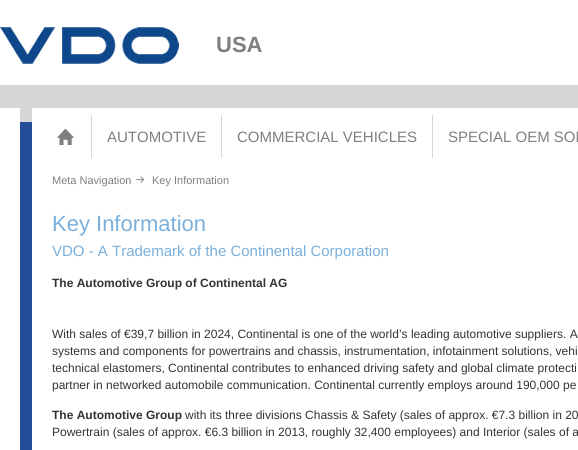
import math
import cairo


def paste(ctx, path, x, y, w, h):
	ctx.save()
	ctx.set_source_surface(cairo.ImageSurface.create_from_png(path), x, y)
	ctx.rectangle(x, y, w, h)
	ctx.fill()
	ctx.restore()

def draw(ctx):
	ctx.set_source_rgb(1, 1, 1)
	ctx.paint()
	paste(ctx, 'media/1.png', 0, 27, 179, 37)
	ctx.select_font_face('Liberation Sans', cairo.FONT_SLANT_NORMAL, cairo.FONT_WEIGHT_BOLD)
	ctx.set_font_size(22)
	ctx.set_source_rgb(0.498, 0.498, 0.498)
	ctx.move_to(216, 52)
	ctx.show_text('USA')
	ctx.set_source_rgb(0.839, 0.839, 0.839)
	ctx.rectangle(0, 85, 578, 23)
	ctx.fill()
	ctx.set_source_rgb(0.137, 0.302, 0.588)
	ctx.rectangle(20, 122, 12, 328)
	ctx.fill()
	ctx.set_source_rgb(0.839, 0.839, 0.839)
	ctx.rectangle(20, 108, 12, 14)
	ctx.fill()
	paste(ctx, 'media/2.png', 57, 128, 17, 18)
	ctx.rectangle(91, 115, 1, 43)
	ctx.fill()
	ctx.select_font_face('Liberation Sans')
	ctx.set_font_size(15)
	ctx.set_source_rgb(0.498, 0.498, 0.498)
	ctx.move_to(107, 142)
	ctx.show_text('AUTOMOTIVE')
	ctx.set_source_rgb(0.839, 0.839, 0.839)
	ctx.rectangle(221, 115, 1, 43)
	ctx.fill()
	ctx.set_source_rgb(0.498, 0.498, 0.498)
	ctx.move_to(237, 142)
	ctx.show_text('COMMERCIAL VEHICLES')
	ctx.set_source_rgb(0.839, 0.839, 0.839)
	ctx.rectangle(432, 115, 1, 43)
	ctx.fill()
	ctx.set_source_rgb(0.498, 0.498, 0.498)
	ctx.move_to(448, 142)
	ctx.show_text('SPECIAL OEM SOL')
	ctx.set_font_size(11)
	ctx.move_to(52, 184)
	ctx.show_text('Meta Navigation')
	paste(ctx, 'media/3.png', 136, 176, 8, 7)
	ctx.move_to(152, 184)
	ctx.show_text('Key Information')
	ctx.set_font_size(22)
	ctx.set_source_rgb(0.478, 0.69, 0.859)
	ctx.move_to(52, 231)
	ctx.show_text('Key Information')
	ctx.set_font_size(15)
	ctx.move_to(52, 256)
	ctx.show_text('VDO - A Trademark of the Continental Corporation')
	ctx.select_font_face('Liberation Sans', cairo.FONT_SLANT_NORMAL, cairo.FONT_WEIGHT_BOLD)
	ctx.set_font_size(12)
	ctx.set_source_rgb(0.2, 0.2, 0.2)
	ctx.move_to(52, 287)
	ctx.show_text('The Automotive Group of Continental AG')
	ctx.select_font_face('Liberation Sans')
	for x, y, s in [
		(52, 338, 'With sales of €39,7 billion in 2024, Continental is one of the world’s leading automotive suppliers. A'),
		(52, 355, 'systems and components for powertrains and chassis, instrumentation, infotainment solutions, vehi'),
		(52, 372, 'technical elastomers, Continental contributes to enhanced driving safety and global climate protecti'),
		(52, 389, 'partner in networked automobile communication. Continental currently employs around 190,000 pe'),
	]:
		ctx.move_to(x, y)
		ctx.show_text(s)
	ctx.select_font_face('Liberation Sans', cairo.FONT_SLANT_NORMAL, cairo.FONT_WEIGHT_BOLD)
	ctx.move_to(52, 419)
	ctx.show_text('The Automotive Group')
	ctx.select_font_face('Liberation Sans')
	ctx.move_to(185, 419)
	ctx.show_text('with its three divisions Chassis & Safety (sales of approx. €7.3 billion in 20')
	ctx.move_to(52, 436)
	ctx.show_text('Powertrain (sales of approx. €6.3 billion in 2013, roughly 32,400 employees) and Interior (sales of a')


surface = cairo.ImageSurface(cairo.FORMAT_RGB24, 578, 450)
ctx = cairo.Context(surface)
options = cairo.FontOptions()
options.set_hint_metrics(cairo.HINT_METRICS_OFF)
options.set_hint_style(cairo.HINT_STYLE_NONE)
ctx.set_font_options(options)
ctx.set_miter_limit(4)
draw(ctx)
surface.write_to_png('image.png')
